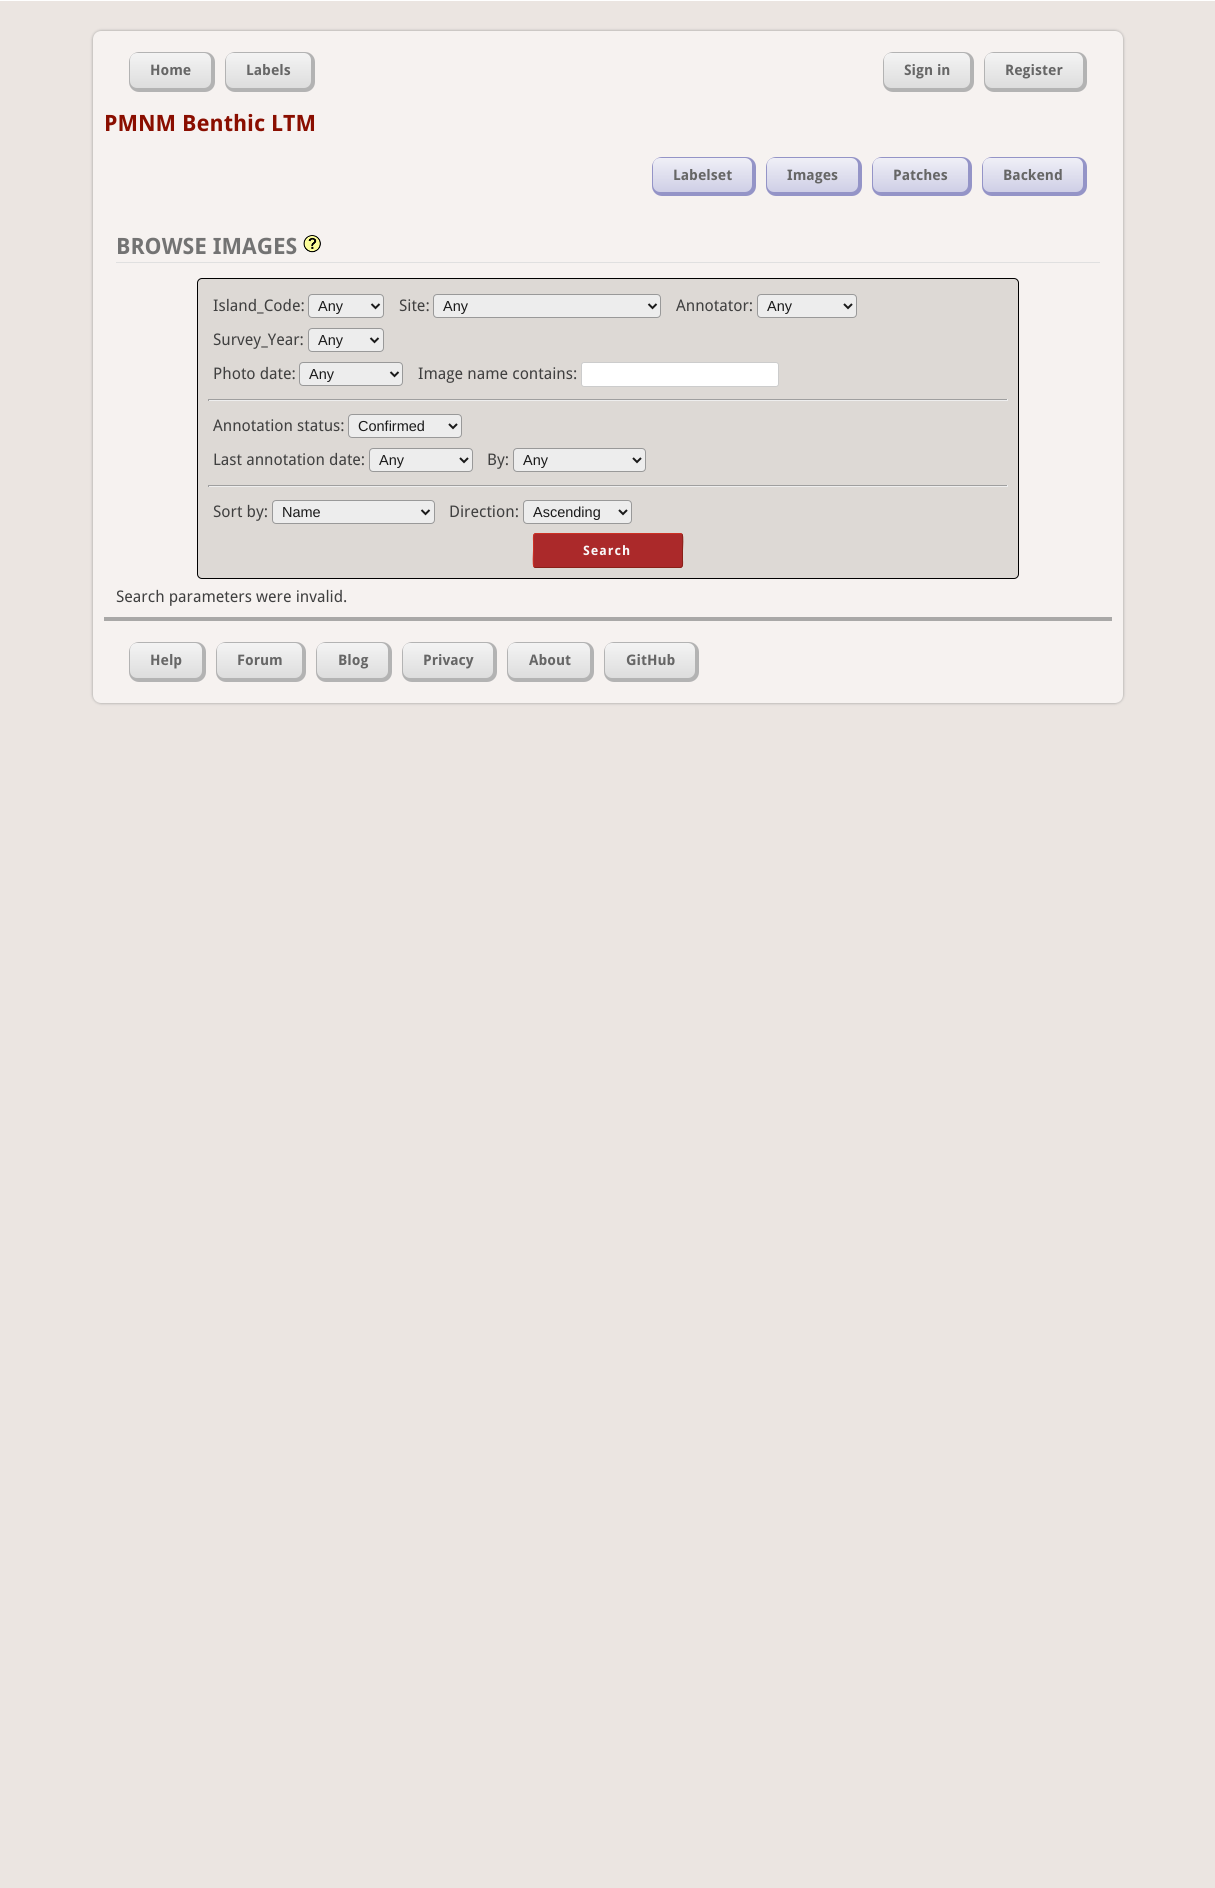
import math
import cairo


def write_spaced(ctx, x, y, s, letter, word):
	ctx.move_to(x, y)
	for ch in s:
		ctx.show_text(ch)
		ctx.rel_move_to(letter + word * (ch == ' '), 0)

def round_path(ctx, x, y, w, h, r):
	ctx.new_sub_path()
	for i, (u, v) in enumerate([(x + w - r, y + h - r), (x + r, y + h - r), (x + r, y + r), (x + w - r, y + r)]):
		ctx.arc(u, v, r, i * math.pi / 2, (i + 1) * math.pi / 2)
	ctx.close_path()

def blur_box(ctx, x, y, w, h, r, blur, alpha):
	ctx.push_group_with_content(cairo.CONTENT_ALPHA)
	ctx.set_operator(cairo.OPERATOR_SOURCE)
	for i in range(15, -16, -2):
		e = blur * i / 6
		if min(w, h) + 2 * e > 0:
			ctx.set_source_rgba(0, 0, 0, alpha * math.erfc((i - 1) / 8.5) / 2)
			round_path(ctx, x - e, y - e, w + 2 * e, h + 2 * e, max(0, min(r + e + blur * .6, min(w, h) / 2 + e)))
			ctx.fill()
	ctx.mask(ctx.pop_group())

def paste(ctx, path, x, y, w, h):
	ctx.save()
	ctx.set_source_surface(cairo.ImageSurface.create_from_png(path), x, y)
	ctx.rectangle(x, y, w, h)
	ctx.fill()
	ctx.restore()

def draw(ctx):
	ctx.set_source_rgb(0.918, 0.898, 0.882)
	ctx.paint()
	ctx.set_source_rgb(1, 1, 1)
	ctx.rectangle(0, 0, 1215, 1)
	ctx.fill()
	ctx.set_source_rgb(0.6, 0.6, 0.6)
	blur_box(ctx, 93, 31, 1030, 672, 8, 1.5, 1)
	ctx.set_source_rgb(0.961, 0.949, 0.941)
	round_path(ctx, 93, 31, 1030, 672, 8)
	ctx.fill()
	ctx.set_source_rgb(0.702, 0.702, 0.702)
	round_path(ctx, 129, 52, 86, 40, 10)
	ctx.fill()
	gradient = cairo.LinearGradient(171, 53, 171, 88)
	gradient.add_color_stop_rgba(0, 1, 1, 1, 0.85)
	gradient.add_color_stop_rgba(1, 1, 1, 1, 0.55)
	ctx.set_source(gradient)
	round_path(ctx, 130, 53, 81, 35, 7)
	ctx.fill()
	ctx.select_font_face('Droid Sans', cairo.FONT_SLANT_NORMAL, cairo.FONT_WEIGHT_BOLD)
	ctx.set_font_size(14.5)
	ctx.set_source_rgb(0.4, 0.4, 0.4)
	ctx.move_to(150, 75)
	ctx.show_text('Home')
	ctx.set_source_rgb(0.702, 0.702, 0.702)
	round_path(ctx, 225, 52, 90, 40, 10)
	ctx.fill()
	gradient = cairo.LinearGradient(269, 53, 269, 88)
	gradient.add_color_stop_rgba(0, 1, 1, 1, 0.85)
	gradient.add_color_stop_rgba(1, 1, 1, 1, 0.55)
	ctx.set_source(gradient)
	round_path(ctx, 226, 53, 85, 35, 7)
	ctx.fill()
	ctx.set_source_rgb(0.4, 0.4, 0.4)
	ctx.move_to(246, 75)
	ctx.show_text('Labels')
	ctx.set_source_rgb(0.702, 0.702, 0.702)
	round_path(ctx, 883, 52, 91, 40, 10)
	ctx.fill()
	gradient = cairo.LinearGradient(927, 53, 927, 88)
	gradient.add_color_stop_rgba(0, 1, 1, 1, 0.85)
	gradient.add_color_stop_rgba(1, 1, 1, 1, 0.55)
	ctx.set_source(gradient)
	round_path(ctx, 884, 53, 86, 35, 7)
	ctx.fill()
	ctx.set_source_rgb(0.4, 0.4, 0.4)
	ctx.move_to(904, 75)
	ctx.show_text('Sign in')
	ctx.set_source_rgb(0.702, 0.702, 0.702)
	round_path(ctx, 984, 52, 103, 40, 10)
	ctx.fill()
	gradient = cairo.LinearGradient(1034, 53, 1034, 88)
	gradient.add_color_stop_rgba(0, 1, 1, 1, 0.85)
	gradient.add_color_stop_rgba(1, 1, 1, 1, 0.55)
	ctx.set_source(gradient)
	round_path(ctx, 985, 53, 98, 35, 7)
	ctx.fill()
	ctx.set_source_rgb(0.4, 0.4, 0.4)
	ctx.move_to(1005, 75)
	ctx.show_text('Register')
	ctx.set_font_size(22.5)
	ctx.set_source_rgb(0.541, 0.055, 0)
	ctx.move_to(104, 131)
	ctx.show_text('PMNM Benthic LTM')
	ctx.set_source_rgb(0.58, 0.58, 0.78)
	round_path(ctx, 652, 157, 104, 39, 10)
	ctx.fill()
	gradient = cairo.LinearGradient(703, 158, 703, 192)
	gradient.add_color_stop_rgba(0, 1, 1, 1, 0.85)
	gradient.add_color_stop_rgba(1, 1, 1, 1, 0.55)
	ctx.set_source(gradient)
	round_path(ctx, 653, 158, 99, 34, 7)
	ctx.fill()
	ctx.set_font_size(14.5)
	ctx.set_source_rgb(0.4, 0.4, 0.4)
	ctx.move_to(673, 180)
	ctx.show_text('Labelset')
	ctx.set_source_rgb(0.58, 0.58, 0.78)
	round_path(ctx, 766, 157, 96, 39, 10)
	ctx.fill()
	gradient = cairo.LinearGradient(813, 158, 813, 192)
	gradient.add_color_stop_rgba(0, 1, 1, 1, 0.85)
	gradient.add_color_stop_rgba(1, 1, 1, 1, 0.55)
	ctx.set_source(gradient)
	round_path(ctx, 767, 158, 91, 34, 7)
	ctx.fill()
	ctx.set_source_rgb(0.4, 0.4, 0.4)
	ctx.move_to(787, 180)
	ctx.show_text('Images')
	ctx.set_source_rgb(0.58, 0.58, 0.78)
	round_path(ctx, 872, 157, 100, 39, 10)
	ctx.fill()
	gradient = cairo.LinearGradient(921, 158, 921, 192)
	gradient.add_color_stop_rgba(0, 1, 1, 1, 0.85)
	gradient.add_color_stop_rgba(1, 1, 1, 1, 0.55)
	ctx.set_source(gradient)
	round_path(ctx, 873, 158, 95, 34, 7)
	ctx.fill()
	ctx.set_source_rgb(0.4, 0.4, 0.4)
	ctx.move_to(893, 180)
	ctx.show_text('Patches')
	ctx.set_source_rgb(0.58, 0.58, 0.78)
	round_path(ctx, 982, 157, 105, 39, 10)
	ctx.fill()
	gradient = cairo.LinearGradient(1033, 158, 1033, 192)
	gradient.add_color_stop_rgba(0, 1, 1, 1, 0.85)
	gradient.add_color_stop_rgba(1, 1, 1, 1, 0.55)
	ctx.set_source(gradient)
	round_path(ctx, 983, 158, 100, 34, 7)
	ctx.fill()
	ctx.set_source_rgb(0.4, 0.4, 0.4)
	ctx.move_to(1003, 180)
	ctx.show_text('Backend')
	ctx.set_source_rgb(0.878, 0.878, 0.878)
	ctx.rectangle(116, 262, 984, 1)
	ctx.fill()
	ctx.set_font_size(22.5)
	ctx.set_source_rgb(0.451, 0.451, 0.451)
	ctx.move_to(116, 254)
	ctx.show_text('BROWSE IMAGES')
	paste(ctx, 'media/1.png', 303, 235, 18, 18)
	ctx.set_source_rgb(0.867, 0.851, 0.835)
	round_path(ctx, 197.5, 278.5, 821, 300, 4.5)
	ctx.fill_preserve()
	ctx.set_source_rgb(0, 0, 0)
	ctx.set_line_width(1)
	ctx.stroke()
	ctx.select_font_face('Droid Sans')
	ctx.set_font_size(16)
	ctx.set_source_rgb(0.251, 0.251, 0.251)
	ctx.move_to(213, 311)
	ctx.show_text('Island_Code:')
	ctx.set_source_rgb(0.929, 0.929, 0.929)
	round_path(ctx, 308.5, 294.5, 75, 23, 3.5)
	ctx.fill_preserve()
	ctx.set_source_rgb(0.6, 0.6, 0.6)
	ctx.stroke()
	ctx.new_path()
	ctx.move_to(371.5, 304)
	ctx.line_to(375.5, 308)
	ctx.line_to(379.5, 304)
	ctx.set_source_rgb(0.102, 0.102, 0.102)
	ctx.set_line_width(2)
	ctx.stroke()
	ctx.select_font_face('Liberation Sans')
	ctx.set_font_size(14.5)
	ctx.move_to(318, 311)
	ctx.show_text('Any')
	ctx.select_font_face('Droid Sans')
	ctx.set_font_size(16)
	ctx.set_source_rgb(0.251, 0.251, 0.251)
	ctx.move_to(399, 311)
	ctx.show_text('Site:')
	ctx.set_source_rgb(0.929, 0.929, 0.929)
	round_path(ctx, 433.5, 294.5, 227, 23, 3.5)
	ctx.fill_preserve()
	ctx.set_source_rgb(0.6, 0.6, 0.6)
	ctx.set_line_width(1)
	ctx.stroke()
	ctx.new_path()
	ctx.move_to(648.5, 304)
	ctx.line_to(652.5, 308)
	ctx.line_to(656.5, 304)
	ctx.set_source_rgb(0.102, 0.102, 0.102)
	ctx.set_line_width(2)
	ctx.stroke()
	ctx.select_font_face('Liberation Sans')
	ctx.set_font_size(14.5)
	ctx.move_to(443, 311)
	ctx.show_text('Any')
	ctx.select_font_face('Droid Sans')
	ctx.set_font_size(16)
	ctx.set_source_rgb(0.251, 0.251, 0.251)
	ctx.move_to(676, 311)
	ctx.show_text('Annotator:')
	ctx.set_source_rgb(0.929, 0.929, 0.929)
	round_path(ctx, 757.5, 294.5, 99, 23, 3.5)
	ctx.fill_preserve()
	ctx.set_source_rgb(0.6, 0.6, 0.6)
	ctx.set_line_width(1)
	ctx.stroke()
	ctx.new_path()
	ctx.move_to(844, 304)
	ctx.line_to(848, 308)
	ctx.line_to(852, 304)
	ctx.set_source_rgb(0.102, 0.102, 0.102)
	ctx.set_line_width(2)
	ctx.stroke()
	ctx.select_font_face('Liberation Sans')
	ctx.set_font_size(14.5)
	ctx.move_to(767, 311)
	ctx.show_text('Any')
	ctx.select_font_face('Droid Sans')
	ctx.set_font_size(16)
	ctx.set_source_rgb(0.251, 0.251, 0.251)
	ctx.move_to(213, 345)
	ctx.show_text('Survey_Year:')
	ctx.set_source_rgb(0.929, 0.929, 0.929)
	round_path(ctx, 308.5, 328.5, 75, 23, 3.5)
	ctx.fill_preserve()
	ctx.set_source_rgb(0.6, 0.6, 0.6)
	ctx.set_line_width(1)
	ctx.stroke()
	ctx.new_path()
	ctx.move_to(370.5, 338)
	ctx.line_to(374.5, 342)
	ctx.line_to(378.5, 338)
	ctx.set_source_rgb(0.102, 0.102, 0.102)
	ctx.set_line_width(2)
	ctx.stroke()
	ctx.select_font_face('Liberation Sans')
	ctx.set_font_size(14.5)
	ctx.move_to(318, 345)
	ctx.show_text('Any')
	ctx.select_font_face('Droid Sans')
	ctx.set_font_size(16)
	ctx.set_source_rgb(0.251, 0.251, 0.251)
	ctx.move_to(213, 379)
	ctx.show_text('Photo date:')
	ctx.set_source_rgb(0.929, 0.929, 0.929)
	round_path(ctx, 299.5, 362.5, 103, 23, 3.5)
	ctx.fill_preserve()
	ctx.set_source_rgb(0.6, 0.6, 0.6)
	ctx.set_line_width(1)
	ctx.stroke()
	ctx.new_path()
	ctx.move_to(390.5, 372)
	ctx.line_to(394.5, 376)
	ctx.line_to(398.5, 372)
	ctx.set_source_rgb(0.102, 0.102, 0.102)
	ctx.set_line_width(2)
	ctx.stroke()
	ctx.select_font_face('Liberation Sans')
	ctx.set_font_size(14.5)
	ctx.move_to(309, 379)
	ctx.show_text('Any')
	ctx.select_font_face('Droid Sans')
	ctx.set_font_size(16)
	ctx.set_source_rgb(0.251, 0.251, 0.251)
	ctx.move_to(418, 379)
	ctx.show_text('Image name contains:')
	ctx.set_source_rgb(1, 1, 1)
	round_path(ctx, 581.5, 362.5, 197, 24, 2.5)
	ctx.fill_preserve()
	ctx.set_source_rgb(0.8, 0.8, 0.8)
	ctx.set_line_width(1)
	ctx.stroke()
	ctx.set_source_rgb(0.624, 0.624, 0.624)
	ctx.rectangle(208, 399, 800, 1)
	ctx.fill()
	ctx.set_source_rgb(0.933, 0.933, 0.933)
	ctx.rectangle(1007, 399, 1, 2)
	ctx.rectangle(208, 400, 800, 1)
	ctx.fill()
	ctx.set_source_rgb(0.624, 0.624, 0.624)
	ctx.rectangle(208, 399, 1, 2)
	ctx.fill()
	ctx.set_source_rgb(0.251, 0.251, 0.251)
	ctx.move_to(213, 431)
	ctx.show_text('Annotation status:')
	ctx.set_source_rgb(0.929, 0.929, 0.929)
	round_path(ctx, 348.5, 414.5, 113, 23, 3.5)
	ctx.fill_preserve()
	ctx.set_source_rgb(0.6, 0.6, 0.6)
	ctx.stroke()
	ctx.new_path()
	ctx.move_to(449, 424)
	ctx.line_to(453, 428)
	ctx.line_to(457, 424)
	ctx.set_source_rgb(0.102, 0.102, 0.102)
	ctx.set_line_width(2)
	ctx.stroke()
	ctx.select_font_face('Liberation Sans')
	ctx.set_font_size(14.5)
	ctx.move_to(358, 431)
	ctx.show_text('Confirmed')
	ctx.select_font_face('Droid Sans')
	ctx.set_font_size(16)
	ctx.set_source_rgb(0.251, 0.251, 0.251)
	ctx.move_to(213, 465)
	ctx.show_text('Last annotation date:')
	ctx.set_source_rgb(0.929, 0.929, 0.929)
	round_path(ctx, 369.5, 448.5, 103, 23, 3.5)
	ctx.fill_preserve()
	ctx.set_source_rgb(0.6, 0.6, 0.6)
	ctx.set_line_width(1)
	ctx.stroke()
	ctx.new_path()
	ctx.move_to(460, 458)
	ctx.line_to(464, 462)
	ctx.line_to(468, 458)
	ctx.set_source_rgb(0.102, 0.102, 0.102)
	ctx.set_line_width(2)
	ctx.stroke()
	ctx.select_font_face('Liberation Sans')
	ctx.set_font_size(14.5)
	ctx.move_to(379, 465)
	ctx.show_text('Any')
	ctx.select_font_face('Droid Sans')
	ctx.set_font_size(16)
	ctx.set_source_rgb(0.251, 0.251, 0.251)
	ctx.move_to(487, 465)
	ctx.show_text('By:')
	ctx.set_source_rgb(0.929, 0.929, 0.929)
	round_path(ctx, 513.5, 448.5, 132, 23, 3.5)
	ctx.fill_preserve()
	ctx.set_source_rgb(0.6, 0.6, 0.6)
	ctx.set_line_width(1)
	ctx.stroke()
	ctx.new_path()
	ctx.move_to(633, 458)
	ctx.line_to(637, 462)
	ctx.line_to(641, 458)
	ctx.set_source_rgb(0.102, 0.102, 0.102)
	ctx.set_line_width(2)
	ctx.stroke()
	ctx.select_font_face('Liberation Sans')
	ctx.set_font_size(14.5)
	ctx.move_to(523, 465)
	ctx.show_text('Any')
	ctx.set_source_rgb(0.624, 0.624, 0.624)
	ctx.rectangle(208, 485, 800, 1)
	ctx.fill()
	ctx.set_source_rgb(0.933, 0.933, 0.933)
	ctx.rectangle(1007, 485, 1, 2)
	ctx.rectangle(208, 486, 800, 1)
	ctx.fill()
	ctx.set_source_rgb(0.624, 0.624, 0.624)
	ctx.rectangle(208, 485, 1, 2)
	ctx.fill()
	ctx.select_font_face('Droid Sans')
	ctx.set_font_size(16)
	ctx.set_source_rgb(0.251, 0.251, 0.251)
	ctx.move_to(213, 517)
	ctx.show_text('Sort by:')
	ctx.set_source_rgb(0.929, 0.929, 0.929)
	round_path(ctx, 272.5, 500.5, 162, 23, 3.5)
	ctx.fill_preserve()
	ctx.set_source_rgb(0.6, 0.6, 0.6)
	ctx.set_line_width(1)
	ctx.stroke()
	ctx.new_path()
	ctx.move_to(421.5, 510)
	ctx.line_to(425.5, 514)
	ctx.line_to(429.5, 510)
	ctx.set_source_rgb(0.102, 0.102, 0.102)
	ctx.set_line_width(2)
	ctx.stroke()
	ctx.select_font_face('Liberation Sans')
	ctx.set_font_size(14.5)
	ctx.move_to(282, 517)
	ctx.show_text('Name')
	ctx.select_font_face('Droid Sans')
	ctx.set_font_size(16)
	ctx.set_source_rgb(0.251, 0.251, 0.251)
	ctx.move_to(449, 517)
	ctx.show_text('Direction:')
	ctx.set_source_rgb(0.929, 0.929, 0.929)
	round_path(ctx, 523.5, 500.5, 108, 23, 3.5)
	ctx.fill_preserve()
	ctx.set_source_rgb(0.6, 0.6, 0.6)
	ctx.set_line_width(1)
	ctx.stroke()
	ctx.new_path()
	ctx.move_to(619, 510)
	ctx.line_to(623, 514)
	ctx.line_to(627, 510)
	ctx.set_source_rgb(0.102, 0.102, 0.102)
	ctx.set_line_width(2)
	ctx.stroke()
	ctx.select_font_face('Liberation Sans')
	ctx.set_font_size(14.5)
	ctx.move_to(533, 517)
	ctx.show_text('Ascending')
	ctx.set_source_rgb(0.671, 0.161, 0.165)
	round_path(ctx, 533, 533, 150, 35, 3)
	ctx.fill()
	ctx.new_path()
	ctx.move_to(682, 534)
	ctx.curve_to(683.5, 536, 682.5, 547.5, 682.5, 550.5)
	ctx.line_to(682.5, 560)
	ctx.curve_to(682.5, 562, 683.5, 567.5, 680, 567.5)
	ctx.line_to(535.5, 567.5)
	ctx.line_to(534, 567)
	ctx.set_source_rgb(0.537, 0.125, 0.094)
	ctx.set_line_width(1)
	ctx.stroke()
	ctx.new_path()
	ctx.move_to(534, 567)
	ctx.curve_to(532.5, 565, 533.5, 553.5, 533.5, 550.5)
	ctx.line_to(533.5, 541)
	ctx.curve_to(533.5, 539, 532.5, 533.5, 536, 533.5)
	ctx.line_to(680.5, 533.5)
	ctx.line_to(682, 534)
	ctx.set_source_rgb(0.808, 0.188, 0.141)
	ctx.stroke()
	ctx.select_font_face('Droid Sans', cairo.FONT_SLANT_NORMAL, cairo.FONT_WEIGHT_BOLD)
	ctx.set_font_size(13)
	ctx.set_source_rgb(0.976, 0.976, 0.976)
	write_spaced(ctx, 583, 555, 'Search', 1, 0)
	ctx.select_font_face('Droid Sans')
	ctx.set_font_size(16)
	ctx.set_source_rgb(0.251, 0.251, 0.251)
	ctx.move_to(116, 602)
	ctx.show_text('Search parameters were invalid.')
	ctx.set_source_rgb(0.663, 0.659, 0.655)
	ctx.rectangle(104, 617, 1008, 4)
	ctx.fill()
	ctx.set_source_rgb(0.702, 0.702, 0.702)
	round_path(ctx, 129, 642, 77, 40, 10)
	ctx.fill()
	gradient = cairo.LinearGradient(166, 643, 166, 678)
	gradient.add_color_stop_rgba(0, 1, 1, 1, 0.85)
	gradient.add_color_stop_rgba(1, 1, 1, 1, 0.55)
	ctx.set_source(gradient)
	round_path(ctx, 130, 643, 72, 35, 7)
	ctx.fill()
	ctx.select_font_face('Droid Sans', cairo.FONT_SLANT_NORMAL, cairo.FONT_WEIGHT_BOLD)
	ctx.set_font_size(14.5)
	ctx.set_source_rgb(0.4, 0.4, 0.4)
	ctx.move_to(150, 665)
	ctx.show_text('Help')
	ctx.set_source_rgb(0.702, 0.702, 0.702)
	round_path(ctx, 216, 642, 90, 40, 10)
	ctx.fill()
	gradient = cairo.LinearGradient(260, 643, 260, 678)
	gradient.add_color_stop_rgba(0, 1, 1, 1, 0.85)
	gradient.add_color_stop_rgba(1, 1, 1, 1, 0.55)
	ctx.set_source(gradient)
	round_path(ctx, 217, 643, 85, 35, 7)
	ctx.fill()
	ctx.set_source_rgb(0.4, 0.4, 0.4)
	ctx.move_to(237, 665)
	ctx.show_text('Forum')
	ctx.set_source_rgb(0.702, 0.702, 0.702)
	round_path(ctx, 316, 642, 76, 40, 10)
	ctx.fill()
	gradient = cairo.LinearGradient(353, 643, 353, 678)
	gradient.add_color_stop_rgba(0, 1, 1, 1, 0.85)
	gradient.add_color_stop_rgba(1, 1, 1, 1, 0.55)
	ctx.set_source(gradient)
	round_path(ctx, 317, 643, 71, 35, 7)
	ctx.fill()
	ctx.set_source_rgb(0.4, 0.4, 0.4)
	ctx.move_to(338, 665)
	ctx.show_text('Blog')
	ctx.set_source_rgb(0.702, 0.702, 0.702)
	round_path(ctx, 402, 642, 95, 40, 10)
	ctx.fill()
	gradient = cairo.LinearGradient(448, 643, 448, 678)
	gradient.add_color_stop_rgba(0, 1, 1, 1, 0.85)
	gradient.add_color_stop_rgba(1, 1, 1, 1, 0.55)
	ctx.set_source(gradient)
	round_path(ctx, 403, 643, 90, 35, 7)
	ctx.fill()
	ctx.set_source_rgb(0.4, 0.4, 0.4)
	ctx.move_to(423, 665)
	ctx.show_text('Privacy')
	ctx.set_source_rgb(0.702, 0.702, 0.702)
	round_path(ctx, 507, 642, 87, 40, 10)
	ctx.fill()
	gradient = cairo.LinearGradient(549, 643, 549, 678)
	gradient.add_color_stop_rgba(0, 1, 1, 1, 0.85)
	gradient.add_color_stop_rgba(1, 1, 1, 1, 0.55)
	ctx.set_source(gradient)
	round_path(ctx, 508, 643, 82, 35, 7)
	ctx.fill()
	ctx.set_source_rgb(0.4, 0.4, 0.4)
	ctx.move_to(529, 665)
	ctx.show_text('About')
	ctx.set_source_rgb(0.702, 0.702, 0.702)
	round_path(ctx, 604, 642, 95, 40, 10)
	ctx.fill()
	gradient = cairo.LinearGradient(650, 643, 650, 678)
	gradient.add_color_stop_rgba(0, 1, 1, 1, 0.85)
	gradient.add_color_stop_rgba(1, 1, 1, 1, 0.55)
	ctx.set_source(gradient)
	round_path(ctx, 605, 643, 90, 35, 7)
	ctx.fill()
	ctx.set_source_rgb(0.4, 0.4, 0.4)
	ctx.move_to(626, 665)
	ctx.show_text('GitHub')


surface = cairo.ImageSurface(cairo.FORMAT_RGB24, 1215, 1888)
ctx = cairo.Context(surface)
options = cairo.FontOptions()
options.set_hint_metrics(cairo.HINT_METRICS_OFF)
options.set_hint_style(cairo.HINT_STYLE_NONE)
ctx.set_font_options(options)
ctx.set_miter_limit(4)
draw(ctx)
surface.write_to_png('image.png')
